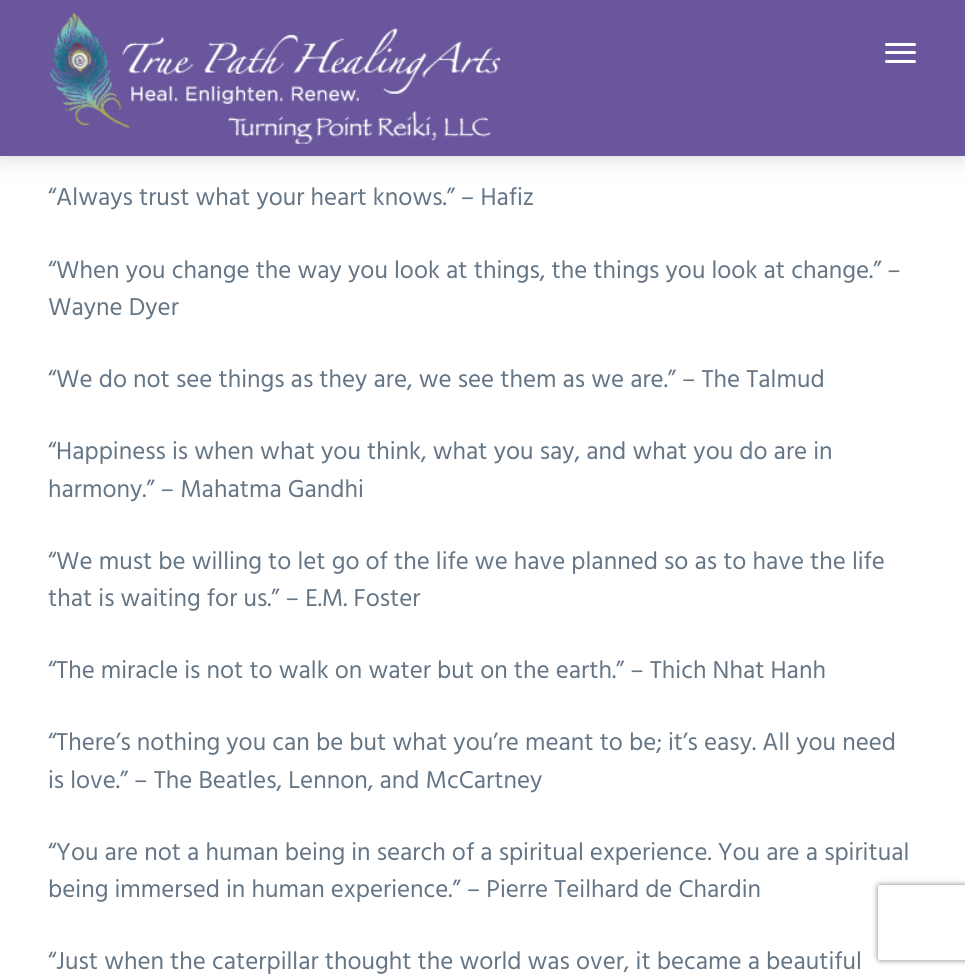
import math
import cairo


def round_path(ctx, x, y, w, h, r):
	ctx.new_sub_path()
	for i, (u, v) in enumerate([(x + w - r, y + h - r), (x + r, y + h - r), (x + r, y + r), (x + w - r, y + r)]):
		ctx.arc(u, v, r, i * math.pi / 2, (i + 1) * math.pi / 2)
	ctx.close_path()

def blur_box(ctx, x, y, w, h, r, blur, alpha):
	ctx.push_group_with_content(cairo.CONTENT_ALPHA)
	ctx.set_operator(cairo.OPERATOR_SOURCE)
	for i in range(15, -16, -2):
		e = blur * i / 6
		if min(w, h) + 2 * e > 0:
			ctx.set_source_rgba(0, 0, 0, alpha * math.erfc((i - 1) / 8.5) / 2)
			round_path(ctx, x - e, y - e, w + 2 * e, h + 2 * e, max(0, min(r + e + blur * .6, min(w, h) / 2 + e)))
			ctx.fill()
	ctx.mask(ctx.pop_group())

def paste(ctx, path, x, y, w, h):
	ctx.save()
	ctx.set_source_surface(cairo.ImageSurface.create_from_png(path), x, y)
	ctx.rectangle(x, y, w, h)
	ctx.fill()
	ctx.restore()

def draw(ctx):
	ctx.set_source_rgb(1, 1, 1)
	ctx.paint()
	ctx.set_source_rgb(0.137, 0.173, 0.224)
	blur_box(ctx, 0, 0, 965, 156, 0, 12.5, 0.2)
	ctx.set_source_rgb(0.412, 0.337, 0.612)
	ctx.rectangle(0, 0, 965, 156)
	ctx.fill()
	paste(ctx, 'media/1.png', 49, 12, 452, 132)
	ctx.set_source_rgb(1, 1, 1)
	round_path(ctx, 885, 51, 31, 3, 1.5)
	ctx.fill()
	round_path(ctx, 885, 43, 31, 3, 1.5)
	ctx.fill()
	round_path(ctx, 885, 60, 31, 3, 1.5)
	ctx.fill()
	ctx.select_font_face('Hind')
	ctx.set_font_size(25)
	ctx.set_source_rgb(0.392, 0.459, 0.522)
	for x, y, s in [
		(48, 205, '“Always trust what your heart knows.” – Hafiz'),
		(48, 278, '“When you change the way you look at things, the things you look at change.” –'),
		(48, 315, 'Wayne Dyer'),
		(48, 387, '“We do not see things as they are, we see them as we are.” – The Talmud'),
		(48, 459, '“Happiness is when what you think, what you say, and what you do are in'),
		(48, 497, 'harmony.” – Mahatma Gandhi'),
		(48, 569, '“We must be willing to let go of the life we have planned so as to have the life'),
		(48, 606, 'that is waiting for us.” – E.M. Foster'),
		(48, 678, '“The miracle is not to walk on water but on the earth.” – Thich Nhat Hanh'),
		(48, 750, '“There’s nothing you can be but what you’re meant to be; it’s easy. All you need'),
		(48, 788, 'is love.” – The Beatles, Lennon, and McCartney'),
		(48, 860, '“You are not a human being in search of a spiritual experience. You are a spiritual'),
		(48, 897, 'being immersed in human experience.” – Pierre Teilhard de Chardin'),
		(48, 969, '“Just when the caterpillar thought the world was over, it became a beautiful'),
	]:
		ctx.move_to(x, y)
		ctx.show_text(s)
	ctx.save()
	ctx.set_fill_rule(cairo.FILL_RULE_EVEN_ODD)
	ctx.new_path()
	ctx.move_to(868, 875)
	ctx.line_to(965, 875)
	ctx.line_to(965, 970)
	ctx.line_to(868, 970)
	ctx.close_path()
	ctx.move_to(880.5, 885)
	ctx.line_to(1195.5, 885)
	ctx.curve_to(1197, 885, 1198, 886, 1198, 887.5)
	ctx.line_to(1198, 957.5)
	ctx.curve_to(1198, 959, 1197, 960, 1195.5, 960)
	ctx.line_to(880.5, 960)
	ctx.curve_to(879, 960, 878, 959, 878, 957.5)
	ctx.line_to(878, 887.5)
	ctx.curve_to(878, 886, 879, 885, 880.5, 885)
	ctx.close_path()
	ctx.clip()
	ctx.set_source_rgb(0.502, 0.502, 0.502)
	blur_box(ctx, 878, 885, 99, 75, 2.5, 3, 1)
	ctx.restore()


surface = cairo.ImageSurface(cairo.FORMAT_RGB24, 965, 977)
ctx = cairo.Context(surface)
options = cairo.FontOptions()
options.set_hint_metrics(cairo.HINT_METRICS_OFF)
options.set_hint_style(cairo.HINT_STYLE_NONE)
ctx.set_font_options(options)
ctx.set_miter_limit(4)
draw(ctx)
surface.write_to_png('image.png')
